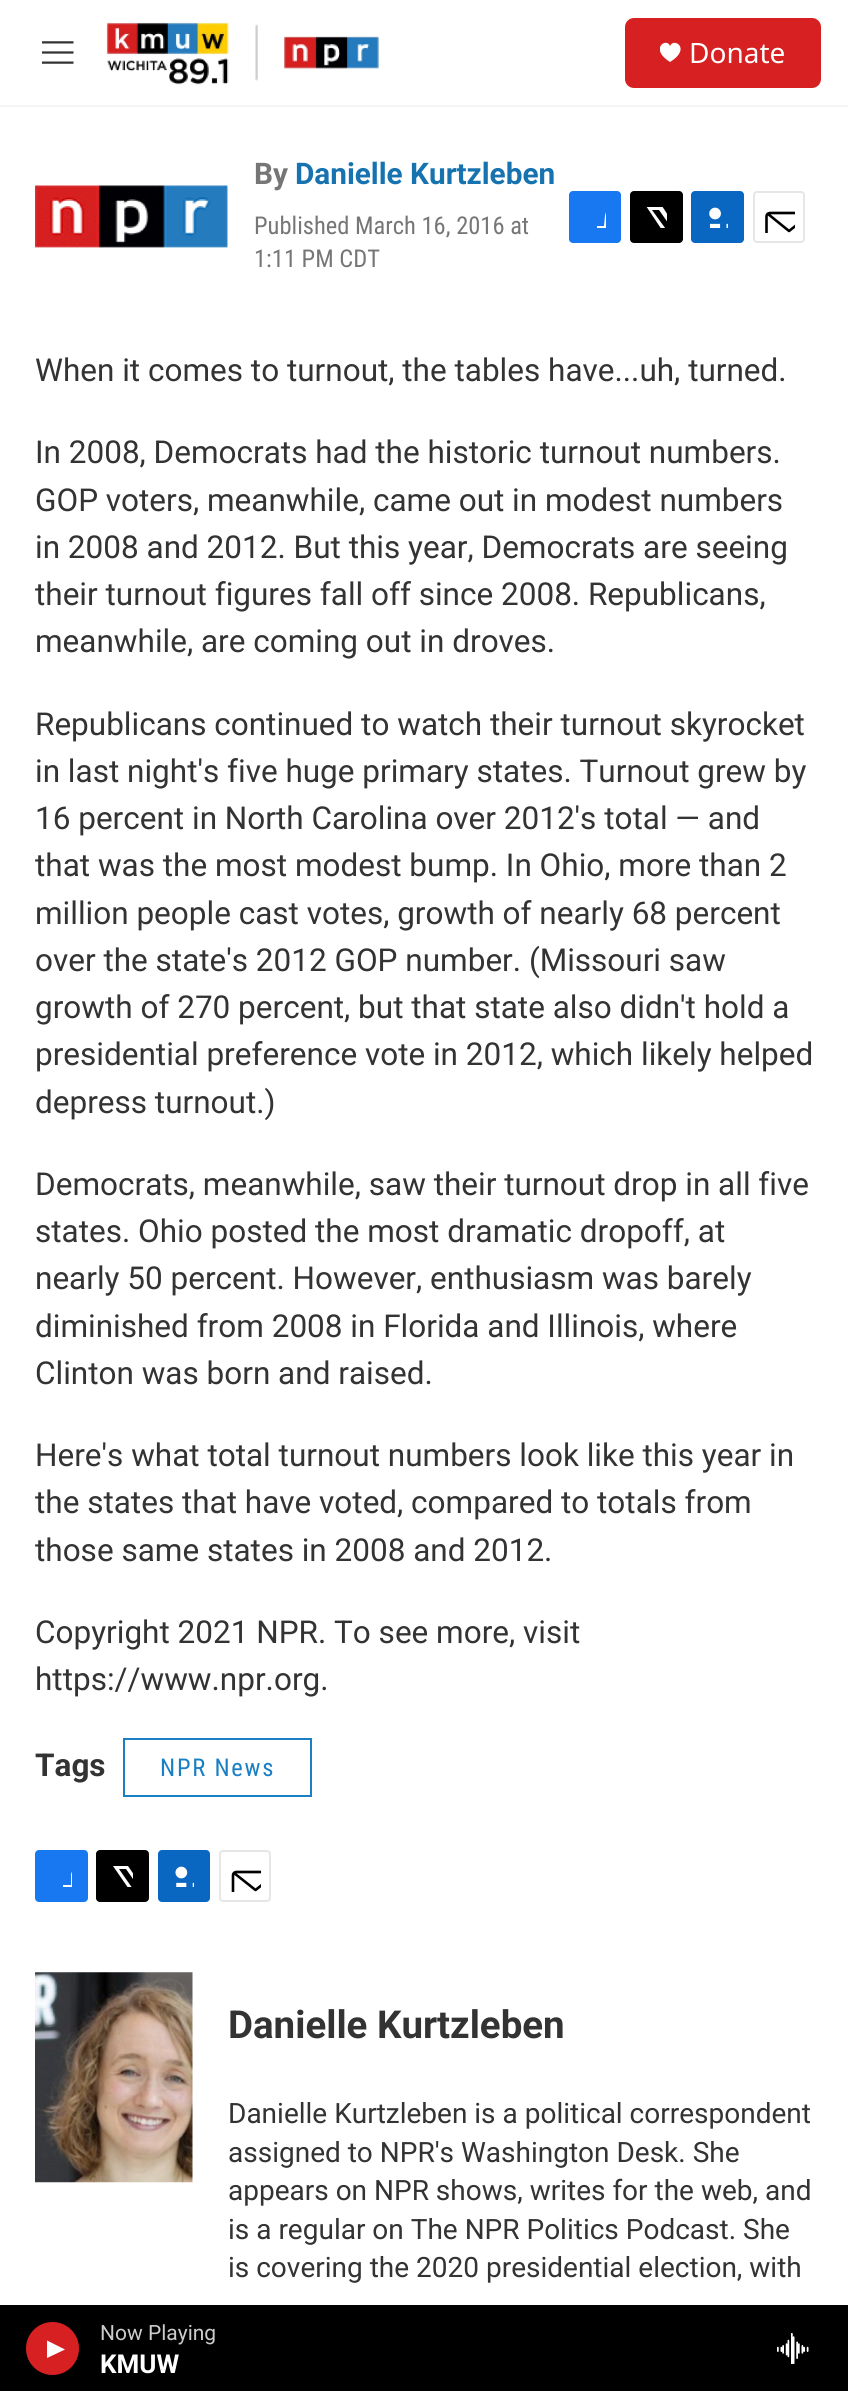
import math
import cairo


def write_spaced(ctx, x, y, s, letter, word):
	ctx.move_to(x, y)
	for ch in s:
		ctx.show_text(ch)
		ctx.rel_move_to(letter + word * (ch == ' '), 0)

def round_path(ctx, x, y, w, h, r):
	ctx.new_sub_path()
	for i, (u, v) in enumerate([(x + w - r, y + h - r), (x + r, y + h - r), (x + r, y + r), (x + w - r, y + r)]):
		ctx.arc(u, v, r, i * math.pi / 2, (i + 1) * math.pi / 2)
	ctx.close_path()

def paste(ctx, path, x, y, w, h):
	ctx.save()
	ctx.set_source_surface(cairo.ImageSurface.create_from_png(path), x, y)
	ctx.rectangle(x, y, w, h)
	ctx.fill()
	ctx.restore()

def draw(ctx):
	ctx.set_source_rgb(1, 1, 1)
	ctx.paint()
	ctx.set_source_rgb(0.961, 0.961, 0.961)
	ctx.rectangle(0, 105, 848, 2)
	ctx.fill()
	paste(ctx, 'media/1.png', 42, 41, 32, 23)
	paste(ctx, 'media/2.png', 105, 22, 274, 63)
	ctx.set_source_rgb(0.839, 0.125, 0.129)
	round_path(ctx, 625, 18, 196, 70, 9)
	ctx.fill()
	ctx.save()
	ctx.rectangle(660, 42, 21, 21)
	ctx.clip()
	ctx.set_source_rgb(1, 1, 1)
	ctx.new_path()
	ctx.move_to(670, 46)
	ctx.curve_to(667, 37, 648.5, 48.5, 670, 62)
	ctx.curve_to(692, 48.5, 673.5, 37, 670, 46)
	ctx.close_path()
	ctx.fill()
	ctx.restore()
	ctx.select_font_face('Noto Sans')
	ctx.set_font_size(28)
	ctx.set_source_rgb(1, 1, 1)
	ctx.move_to(689, 63)
	ctx.show_text('Donate')
	ctx.set_source_rgb(0, 0, 0)
	ctx.rectangle(0, 2305, 848, 86)
	ctx.fill()
	ctx.set_source_rgb(0.839, 0.125, 0.129)
	ctx.arc(52.5, 2348.5, 26.5, 0, 2 * math.pi)
	ctx.fill()
	ctx.set_source_rgb(1, 1, 1)
	ctx.new_path()
	ctx.move_to(47, 2340.5)
	ctx.line_to(65, 2349.5)
	ctx.line_to(47, 2358)
	ctx.close_path()
	ctx.fill()
	ctx.select_font_face('Roboto')
	ctx.set_font_size(21)
	ctx.set_source_rgb(0.8, 0.8, 0.8)
	ctx.move_to(100, 2340)
	ctx.show_text('Now Playing')
	ctx.select_font_face('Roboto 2', cairo.FONT_SLANT_NORMAL, cairo.FONT_WEIGHT_BOLD)
	ctx.set_font_size(26)
	ctx.set_source_rgb(1, 1, 1)
	ctx.move_to(100, 2373)
	ctx.show_text('KMUW')
	paste(ctx, 'media/3.png', 777, 2333, 32, 31)
	paste(ctx, 'media/4.png', 35, 185, 193, 64)
	ctx.select_font_face('Roboto', cairo.FONT_SLANT_NORMAL, cairo.FONT_WEIGHT_BOLD)
	ctx.set_font_size(29.75)
	ctx.set_source_rgb(0.463, 0.463, 0.463)
	ctx.move_to(254, 184)
	ctx.show_text('By')
	ctx.set_source_rgb(0.09, 0.447, 0.69)
	ctx.move_to(295, 184)
	ctx.show_text('Danielle Kurtzleben')
	ctx.select_font_face('Roboto Condensed')
	ctx.set_font_size(24.5)
	ctx.set_source_rgb(0.463, 0.463, 0.463)
	ctx.move_to(254, 234)
	ctx.show_text('Published March 16, 2016 at')
	ctx.move_to(254, 267)
	ctx.show_text('1:11 PM CDT')
	ctx.set_source_rgb(0.09, 0.471, 0.949)
	round_path(ctx, 569, 191, 52, 52, 4)
	ctx.fill()
	ctx.save()
	ctx.rectangle(585, 207, 21, 21)
	ctx.clip()
	ctx.set_source_rgb(1, 1, 1)
	ctx.new_path()
	ctx.move_to(614, 243)
	ctx.line_to(604, 243)
	ctx.line_to(604, 235)
	ctx.line_to(597, 235)
	ctx.line_to(597, 226)
	ctx.line_to(604, 226)
	ctx.line_to(605, 216)
	ctx.curve_to(606, 207.5, 613.5, 206, 621, 207.5)
	ctx.line_to(621, 215)
	ctx.curve_to(613.5, 215, 613.5, 216, 614, 222)
	ctx.line_to(614, 226)
	ctx.line_to(621, 226)
	ctx.line_to(621, 235)
	ctx.line_to(614, 235)
	ctx.close_path()
	ctx.fill()
	ctx.restore()
	ctx.set_source_rgb(0, 0, 0)
	round_path(ctx, 630, 191, 53, 52, 4)
	ctx.fill()
	ctx.save()
	ctx.rectangle(646, 207, 21, 21)
	ctx.clip()
	ctx.set_source_rgb(1, 1, 1)
	ctx.new_path()
	ctx.move_to(677, 229)
	ctx.line_to(683, 237.5)
	ctx.curve_to(683, 239.5, 683, 241, 681.5, 242)
	ctx.line_to(659, 210)
	ctx.line_to(652, 210)
	ctx.line_to(676, 243)
	ctx.line_to(671, 243)
	ctx.line_to(668, 239)
	ctx.line_to(664.5, 243)
	ctx.line_to(660, 243)
	ctx.line_to(666, 236)
	ctx.line_to(646, 206)
	ctx.line_to(662, 206)
	ctx.line_to(675, 226)
	ctx.line_to(683, 216)
	ctx.line_to(683, 221.5)
	ctx.close_path()
	ctx.fill()
	ctx.restore()
	ctx.set_source_rgb(0.039, 0.4, 0.757)
	round_path(ctx, 691, 191, 53, 52, 4)
	ctx.fill()
	paste(ctx, 'media/5.png', 709, 207, 19, 21)
	round_path(ctx, 754, 192, 50, 50, 3)
	ctx.set_source_rgb(0.902, 0.902, 0.902)
	ctx.stroke()
	ctx.save()
	ctx.rectangle(763, 201, 32, 32)
	ctx.clip()
	ctx.new_path()
	ctx.move_to(812, 239.5)
	ctx.curve_to(812, 241.5, 810.5, 243, 808.5, 243)
	ctx.line_to(770, 243)
	ctx.curve_to(768, 243, 766.5, 241.5, 766.5, 239.5)
	ctx.line_to(766.5, 216)
	ctx.curve_to(766.5, 214.5, 768, 213, 770, 213)
	ctx.line_to(808.5, 213)
	ctx.curve_to(810.5, 213, 812, 214.5, 812, 216)
	ctx.close_path()
	ctx.move_to(810.5, 214)
	ctx.line_to(789, 231)
	ctx.line_to(768, 214)
	ctx.set_source_rgb(0, 0, 0)
	ctx.set_line_width(2.6)
	ctx.set_line_cap(cairo.LINE_CAP_ROUND)
	ctx.set_line_join(cairo.LINE_JOIN_ROUND)
	ctx.stroke()
	ctx.restore()
	ctx.select_font_face('Roboto')
	ctx.set_font_size(31.5)
	ctx.set_source_rgb(0.2, 0.2, 0.2)
	for x, y, s in [
		(35, 381, 'When it comes to turnout, the tables have...uh, turned.'),
		(35, 463, 'In 2008, Democrats had the historic turnout numbers.'),
		(35, 511, 'GOP voters, meanwhile, came out in modest numbers'),
		(35, 558, 'in 2008 and 2012. But this year, Democrats are seeing'),
		(35, 605, 'their turnout figures fall off since 2008. Republicans,'),
		(35, 652, 'meanwhile, are coming out in droves.'),
		(35, 735, 'Republicans continued to watch their turnout skyrocket'),
		(35, 782, 'in last night\'s five huge primary states. Turnout grew by'),
		(35, 829, '16 percent in North Carolina over 2012\'s total — and'),
		(35, 876, 'that was the most modest bump. In Ohio, more than 2'),
		(35, 924, 'million people cast votes, growth of nearly 68 percent'),
		(35, 971, 'over the state\'s 2012 GOP number. (Missouri saw'),
		(35, 1018, 'growth of 270 percent, but that state also didn\'t hold a'),
		(35, 1065, 'presidential preference vote in 2012, which likely helped'),
		(35, 1113, 'depress turnout.)'),
		(35, 1195, 'Democrats, meanwhile, saw their turnout drop in all five'),
		(35, 1242, 'states. Ohio posted the most dramatic dropoff, at'),
		(35, 1289, 'nearly 50 percent. However, enthusiasm was barely'),
		(35, 1337, 'diminished from 2008 in Florida and Illinois, where'),
		(35, 1384, 'Clinton was born and raised.'),
		(35, 1466, 'Here\'s what total turnout numbers look like this year in'),
		(35, 1513, 'the states that have voted, compared to totals from'),
		(35, 1561, 'those same states in 2008 and 2012.'),
		(35, 1643, 'Copyright 2021 NPR. To see more, visit'),
		(35, 1690, 'https://www.npr.org.'),
	]:
		ctx.move_to(x, y)
		ctx.show_text(s)
	ctx.select_font_face('Roboto', cairo.FONT_SLANT_NORMAL, cairo.FONT_WEIGHT_BOLD)
	ctx.move_to(35, 1776)
	ctx.show_text('Tags')
	ctx.rectangle(124, 1739, 187, 57)
	ctx.set_source_rgb(0.102, 0.498, 0.765)
	ctx.stroke()
	ctx.select_font_face('Roboto Condensed')
	ctx.set_font_size(24.5)
	write_spaced(ctx, 160, 1776, 'NPR News', 1.75, 0)
	ctx.set_source_rgb(0.09, 0.471, 0.949)
	round_path(ctx, 35, 1850, 53, 52, 4)
	ctx.fill()
	ctx.save()
	ctx.rectangle(51, 1866, 21, 21)
	ctx.clip()
	ctx.set_source_rgb(1, 1, 1)
	ctx.new_path()
	ctx.move_to(80, 1902)
	ctx.line_to(71, 1902)
	ctx.line_to(71, 1894)
	ctx.line_to(63, 1894)
	ctx.line_to(63, 1885)
	ctx.line_to(71, 1885)
	ctx.line_to(71, 1875)
	ctx.curve_to(72, 1866.5, 80.5, 1865, 88, 1867)
	ctx.line_to(88, 1874)
	ctx.curve_to(78, 1874, 80, 1877, 80, 1885)
	ctx.line_to(88, 1885)
	ctx.line_to(87, 1894)
	ctx.line_to(80, 1894)
	ctx.close_path()
	ctx.fill()
	ctx.restore()
	ctx.set_source_rgb(0, 0, 0)
	round_path(ctx, 96, 1850, 53, 52, 4)
	ctx.fill()
	ctx.save()
	ctx.rectangle(112, 1866, 21, 21)
	ctx.clip()
	ctx.set_source_rgb(1, 1, 1)
	ctx.new_path()
	ctx.move_to(143, 1888)
	ctx.line_to(149, 1896.5)
	ctx.curve_to(149, 1898, 149, 1899.5, 148, 1900.5)
	ctx.line_to(126, 1869)
	ctx.line_to(119, 1869)
	ctx.line_to(142, 1902)
	ctx.line_to(138, 1902)
	ctx.line_to(135, 1898)
	ctx.line_to(131.5, 1902)
	ctx.line_to(127, 1902)
	ctx.line_to(133, 1895)
	ctx.line_to(113, 1866)
	ctx.line_to(128, 1866)
	ctx.line_to(141, 1885)
	ctx.line_to(149, 1876)
	ctx.line_to(149, 1881)
	ctx.close_path()
	ctx.fill()
	ctx.restore()
	ctx.set_source_rgb(0.039, 0.4, 0.757)
	round_path(ctx, 158, 1850, 52, 52, 4)
	ctx.fill()
	paste(ctx, 'media/6.png', 175, 1866, 19, 21)
	round_path(ctx, 220, 1851, 50, 50, 3)
	ctx.set_source_rgb(0.902, 0.902, 0.902)
	ctx.stroke()
	ctx.save()
	ctx.rectangle(229, 1860, 32, 32)
	ctx.clip()
	ctx.new_path()
	ctx.move_to(278, 1898.5)
	ctx.curve_to(278, 1900.5, 276.5, 1902, 275, 1902)
	ctx.line_to(236, 1902)
	ctx.curve_to(234.5, 1902, 233, 1900.5, 233, 1898.5)
	ctx.line_to(233, 1875)
	ctx.curve_to(233, 1873.5, 234.5, 1872, 236, 1872)
	ctx.line_to(275, 1872)
	ctx.curve_to(276.5, 1872, 278, 1873.5, 278, 1875)
	ctx.close_path()
	ctx.move_to(277, 1873)
	ctx.line_to(255.5, 1890)
	ctx.line_to(234, 1873)
	ctx.set_source_rgb(0, 0, 0)
	ctx.set_line_width(2.6)
	ctx.set_line_cap(cairo.LINE_CAP_ROUND)
	ctx.set_line_join(cairo.LINE_JOIN_ROUND)
	ctx.stroke()
	ctx.restore()
	paste(ctx, 'media/7.png', 35, 1972, 158, 211)
	ctx.select_font_face('Roboto', cairo.FONT_SLANT_NORMAL, cairo.FONT_WEIGHT_BOLD)
	ctx.set_font_size(38.5)
	ctx.set_source_rgb(0.2, 0.2, 0.2)
	ctx.move_to(228, 2038)
	ctx.show_text('Danielle Kurtzleben')
	ctx.select_font_face('Roboto')
	ctx.set_font_size(28)
	for x, y, s in [
		(228, 2123, 'Danielle Kurtzleben is a political correspondent'),
		(228, 2162, 'assigned to NPR\'s Washington Desk. She'),
		(228, 2200, 'appears on NPR shows, writes for the web, and'),
		(228, 2239, 'is a regular on The NPR Politics Podcast. She'),
		(228, 2277, 'is covering the 2020 presidential election, with'),
	]:
		ctx.move_to(x, y)
		ctx.show_text(s)


surface = cairo.ImageSurface(cairo.FORMAT_RGB24, 848, 2391)
ctx = cairo.Context(surface)
options = cairo.FontOptions()
options.set_hint_metrics(cairo.HINT_METRICS_OFF)
options.set_hint_style(cairo.HINT_STYLE_NONE)
ctx.set_font_options(options)
ctx.set_miter_limit(4)
draw(ctx)
surface.write_to_png('image.png')
